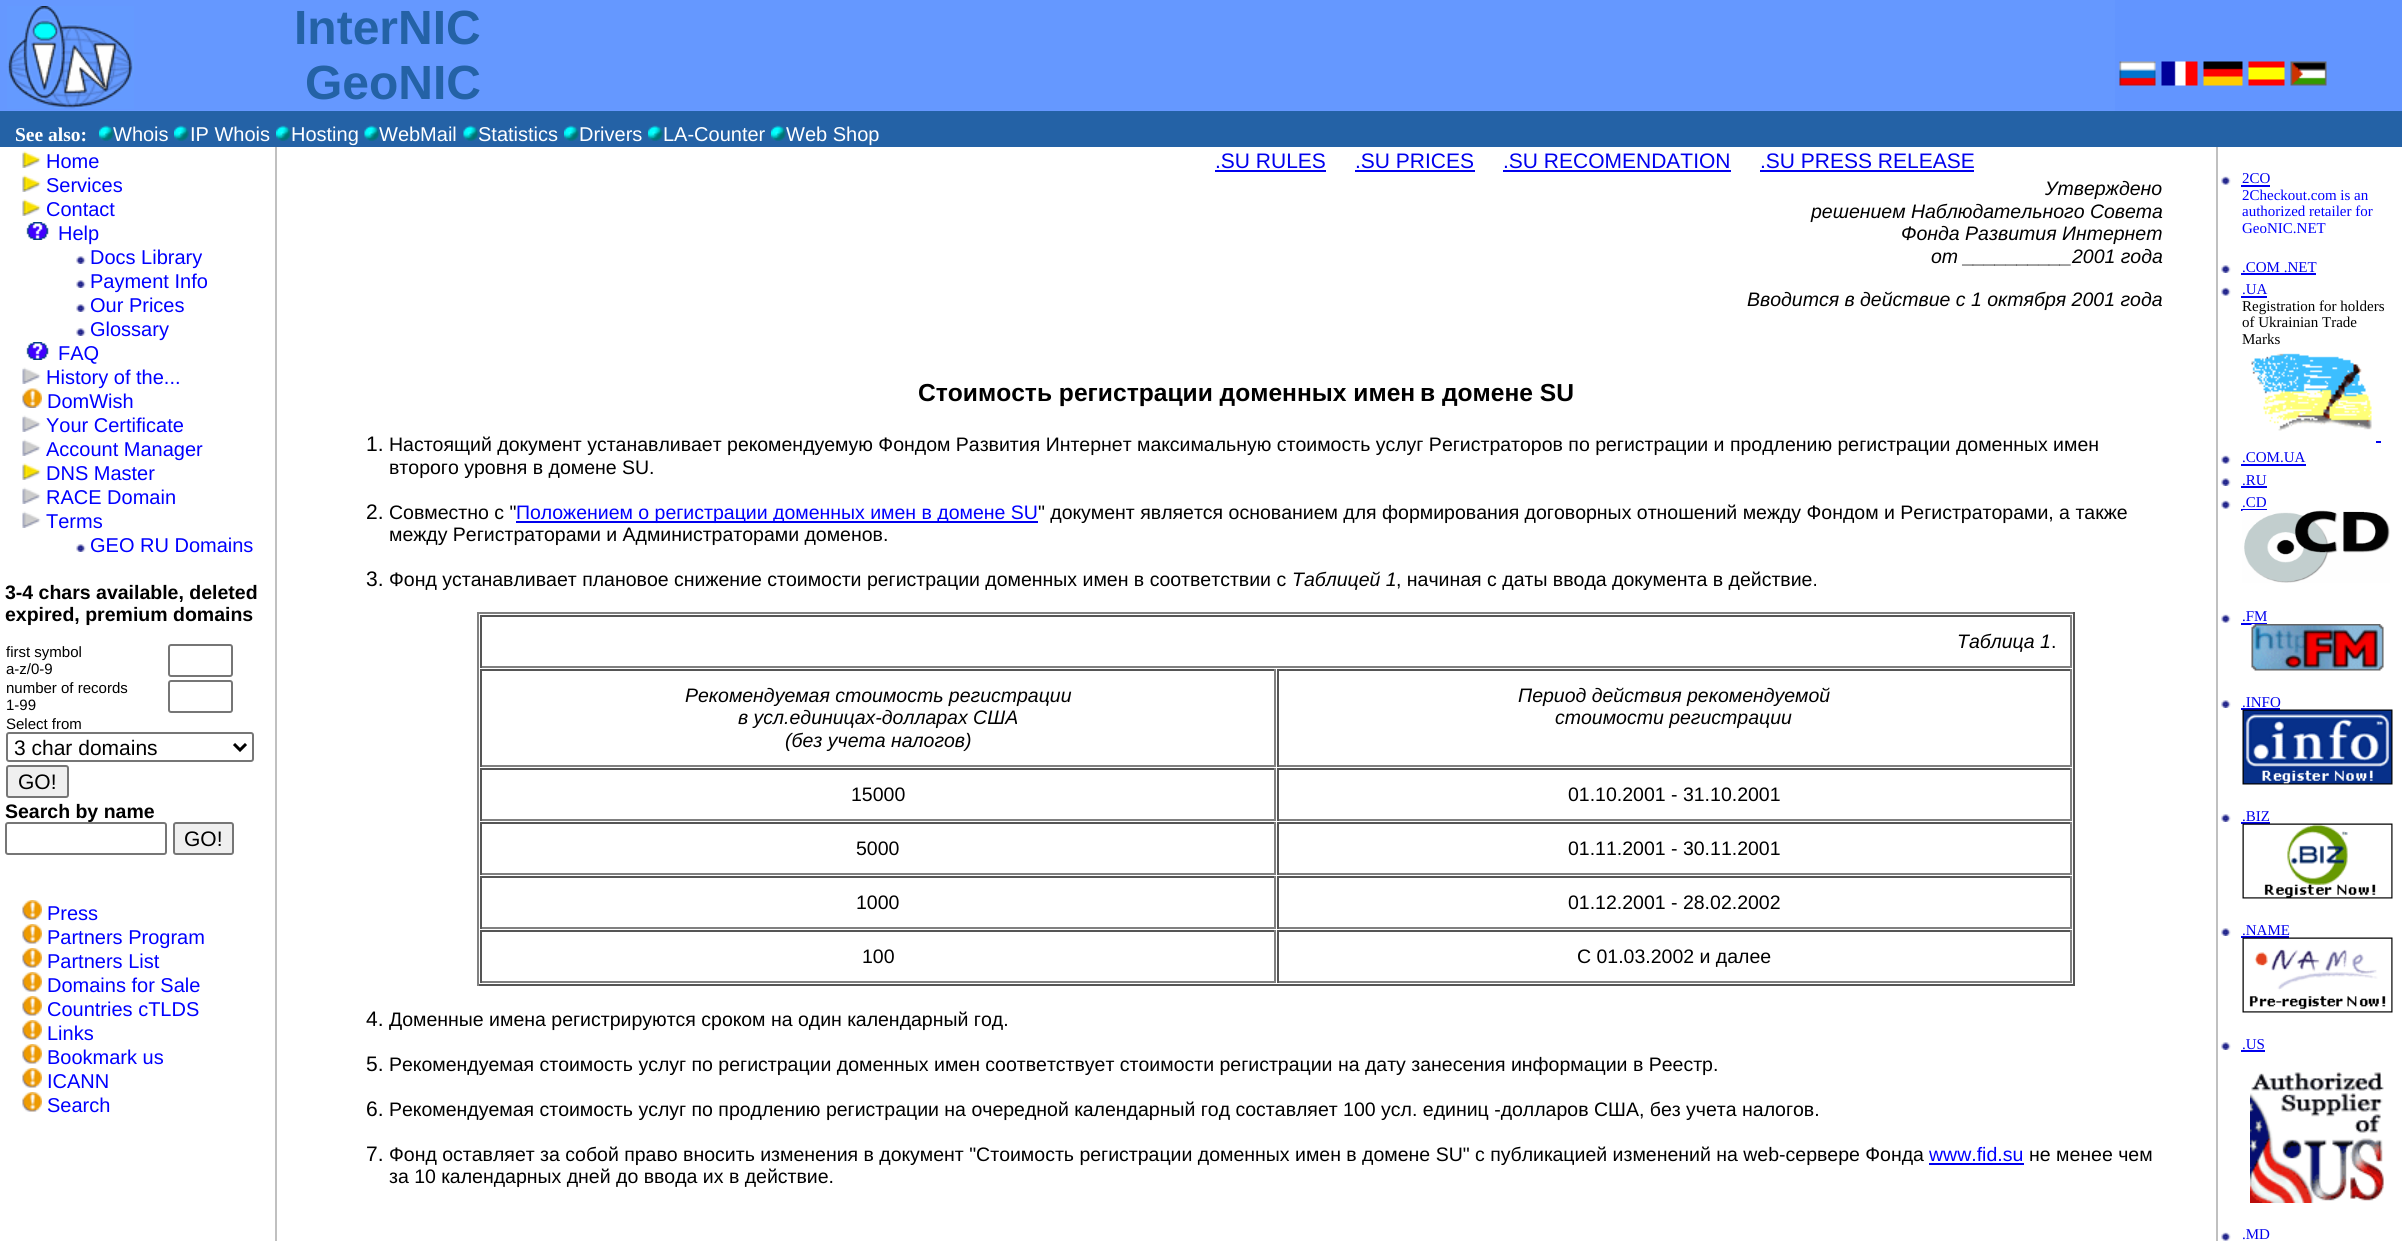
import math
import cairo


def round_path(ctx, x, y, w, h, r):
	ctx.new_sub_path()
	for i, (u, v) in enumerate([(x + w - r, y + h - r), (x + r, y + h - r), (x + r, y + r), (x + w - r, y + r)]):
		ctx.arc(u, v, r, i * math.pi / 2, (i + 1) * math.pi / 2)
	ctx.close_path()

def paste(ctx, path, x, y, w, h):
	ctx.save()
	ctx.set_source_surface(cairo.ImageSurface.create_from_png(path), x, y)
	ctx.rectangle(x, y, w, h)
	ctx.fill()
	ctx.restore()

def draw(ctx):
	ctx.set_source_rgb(1, 1, 1)
	ctx.paint()
	ctx.set_source_rgb(0.396, 0.596, 1)
	ctx.rectangle(0, 0, 2115, 111)
	ctx.fill()
	paste(ctx, 'media/1.png', 7, 6, 127, 103)
	ctx.select_font_face('Liberation Sans', cairo.FONT_SLANT_NORMAL, cairo.FONT_WEIGHT_BOLD)
	ctx.set_font_size(48)
	ctx.set_source_rgb(0.141, 0.384, 0.651)
	ctx.move_to(294, 44)
	ctx.show_text('InterNIC')
	ctx.move_to(305, 99)
	ctx.show_text('GeoNIC')
	ctx.set_source_rgb(0.384, 0.584, 1)
	ctx.rectangle(2115, 0, 287, 111)
	ctx.fill()
	paste(ctx, 'media/2.png', 2119, 61, 37, 25)
	paste(ctx, 'media/3.png', 2161, 61, 37, 25)
	paste(ctx, 'media/4.png', 2203, 61, 40, 25)
	paste(ctx, 'media/5.png', 2248, 61, 37, 25)
	paste(ctx, 'media/6.png', 2290, 61, 37, 25)
	ctx.set_source_rgb(0.141, 0.384, 0.651)
	ctx.rectangle(0, 111, 2402, 36)
	ctx.fill()
	ctx.select_font_face('Liberation Serif', cairo.FONT_SLANT_NORMAL, cairo.FONT_WEIGHT_BOLD)
	ctx.set_font_size(19.5)
	ctx.set_source_rgb(1, 1, 1)
	ctx.move_to(15, 141)
	ctx.show_text('See also:')
	paste(ctx, 'media/7.png', 99, 125, 15, 16)
	ctx.select_font_face('Liberation Sans')
	ctx.set_font_size(20)
	ctx.move_to(113, 141)
	ctx.show_text('Whois')
	paste(ctx, 'media/7.png', 174, 125, 15, 16)
	ctx.move_to(190, 141)
	ctx.show_text('IP Whois')
	paste(ctx, 'media/8.png', 276, 125, 15, 16)
	ctx.move_to(291, 141)
	ctx.show_text('Hosting')
	paste(ctx, 'media/9.png', 364, 125, 16, 16)
	ctx.move_to(379, 141)
	ctx.show_text('WebMail')
	paste(ctx, 'media/10.png', 463, 125, 16, 16)
	ctx.move_to(478, 141)
	ctx.show_text('Statistics')
	paste(ctx, 'media/8.png', 564, 125, 15, 16)
	ctx.move_to(579, 141)
	ctx.show_text('Drivers')
	paste(ctx, 'media/7.png', 648, 125, 15, 16)
	ctx.move_to(663, 141)
	ctx.show_text('LA-Counter')
	paste(ctx, 'media/7.png', 771, 125, 15, 16)
	ctx.move_to(786, 141)
	ctx.show_text('Web Shop')
	ctx.set_source_rgb(0.753, 0.753, 0.753)
	ctx.rectangle(275, 147, 2, 1094)
	ctx.fill()
	ctx.rectangle(2216, 147, 2, 1094)
	ctx.fill()
	paste(ctx, 'media/11.png', 22, 151, 19, 17)
	ctx.set_source_rgb(0, 0, 1)
	ctx.move_to(46, 168)
	ctx.show_text('Home')
	paste(ctx, 'media/11.png', 22, 175, 19, 17)
	ctx.move_to(46, 192)
	ctx.show_text('Services')
	paste(ctx, 'media/11.png', 22, 199, 19, 17)
	ctx.move_to(46, 216)
	ctx.show_text('Contact')
	paste(ctx, 'media/12.png', 26, 222, 23, 18)
	ctx.move_to(58, 240)
	ctx.show_text('Help')
	paste(ctx, 'media/13.png', 76, 256, 10, 8)
	ctx.move_to(90, 264)
	ctx.show_text('Docs Library')
	paste(ctx, 'media/13.png', 76, 280, 10, 8)
	ctx.move_to(90, 288)
	ctx.show_text('Payment Info')
	paste(ctx, 'media/13.png', 76, 304, 10, 8)
	ctx.move_to(90, 312)
	ctx.show_text('Our Prices')
	paste(ctx, 'media/13.png', 76, 328, 10, 8)
	ctx.move_to(90, 336)
	ctx.show_text('Glossary')
	paste(ctx, 'media/12.png', 26, 342, 23, 18)
	ctx.move_to(58, 360)
	ctx.show_text('FAQ')
	paste(ctx, 'media/14.png', 22, 367, 19, 17)
	ctx.move_to(46, 384)
	ctx.show_text('History of the...')
	paste(ctx, 'media/15.png', 22, 388, 20, 20)
	ctx.move_to(47, 408)
	ctx.show_text('DomWish')
	paste(ctx, 'media/14.png', 22, 415, 19, 17)
	ctx.move_to(46, 432)
	ctx.show_text('Your Certificate')
	paste(ctx, 'media/14.png', 22, 439, 19, 17)
	ctx.move_to(46, 456)
	ctx.show_text('Account Manager')
	paste(ctx, 'media/11.png', 22, 463, 19, 17)
	ctx.move_to(46, 480)
	ctx.show_text('DNS Master')
	paste(ctx, 'media/14.png', 22, 487, 19, 17)
	ctx.move_to(46, 504)
	ctx.show_text('RACE Domain')
	paste(ctx, 'media/14.png', 22, 511, 19, 17)
	ctx.move_to(46, 528)
	ctx.show_text('Terms')
	paste(ctx, 'media/13.png', 76, 544, 10, 8)
	ctx.move_to(90, 552)
	ctx.show_text('GEO RU Domains')
	ctx.select_font_face('Liberation Sans', cairo.FONT_SLANT_NORMAL, cairo.FONT_WEIGHT_BOLD)
	ctx.set_font_size(19.5)
	ctx.set_source_rgb(0, 0, 0)
	ctx.move_to(5, 599)
	ctx.show_text('3-4 chars available, deleted')
	ctx.move_to(5, 621)
	ctx.show_text('expired, premium domains')
	ctx.select_font_face('Liberation Sans')
	ctx.set_font_size(15)
	ctx.move_to(6, 657)
	ctx.show_text('first symbol')
	ctx.move_to(6, 674)
	ctx.show_text('a-z/0-9')
	round_path(ctx, 169, 645, 63, 31, 2)
	ctx.set_source_rgb(0.463, 0.463, 0.463)
	ctx.stroke()
	ctx.set_source_rgb(0, 0, 0)
	ctx.move_to(6, 693)
	ctx.show_text('number of records')
	ctx.move_to(6, 710)
	ctx.show_text('1-99')
	round_path(ctx, 169, 681, 63, 31, 2)
	ctx.set_source_rgb(0.463, 0.463, 0.463)
	ctx.stroke()
	ctx.set_source_rgb(0, 0, 0)
	ctx.move_to(6, 729)
	ctx.show_text('Select from')
	round_path(ctx, 7, 733, 246, 28, 2)
	ctx.set_source_rgb(0.463, 0.463, 0.463)
	ctx.stroke()
	ctx.new_path()
	ctx.move_to(234, 744)
	ctx.line_to(240, 750)
	ctx.line_to(246, 744)
	ctx.set_source_rgb(0, 0, 0)
	ctx.set_line_width(3)
	ctx.stroke()
	ctx.set_font_size(21)
	ctx.move_to(14, 755)
	ctx.show_text('3 char domains')
	ctx.set_source_rgb(0.937, 0.937, 0.937)
	round_path(ctx, 7, 766, 61, 31, 2)
	ctx.fill_preserve()
	ctx.set_source_rgb(0.463, 0.463, 0.463)
	ctx.set_line_width(2)
	ctx.stroke()
	ctx.set_source_rgb(0, 0, 0)
	ctx.move_to(18, 789)
	ctx.show_text('GO!')
	ctx.select_font_face('Liberation Sans', cairo.FONT_SLANT_NORMAL, cairo.FONT_WEIGHT_BOLD)
	ctx.set_font_size(19.5)
	ctx.move_to(5, 818)
	ctx.show_text('Search by name')
	ctx.set_source_rgb(1, 1, 1)
	round_path(ctx, 6, 823, 160, 31, 2)
	ctx.fill_preserve()
	ctx.set_source_rgb(0.463, 0.463, 0.463)
	ctx.stroke()
	ctx.set_source_rgb(0.937, 0.937, 0.937)
	round_path(ctx, 174, 823, 59, 31, 2)
	ctx.fill_preserve()
	ctx.set_source_rgb(0.463, 0.463, 0.463)
	ctx.stroke()
	ctx.select_font_face('Liberation Sans')
	ctx.set_font_size(21)
	ctx.set_source_rgb(0, 0, 0)
	ctx.move_to(184, 846)
	ctx.show_text('GO!')
	paste(ctx, 'media/16.png', 22, 900, 20, 20)
	ctx.set_font_size(20)
	ctx.set_source_rgb(0, 0, 1)
	ctx.move_to(47, 920)
	ctx.show_text('Press')
	paste(ctx, 'media/16.png', 22, 924, 20, 20)
	ctx.move_to(47, 944)
	ctx.show_text('Partners Program')
	paste(ctx, 'media/16.png', 22, 948, 20, 20)
	ctx.move_to(47, 968)
	ctx.show_text('Partners List')
	paste(ctx, 'media/16.png', 22, 972, 20, 20)
	ctx.move_to(47, 992)
	ctx.show_text('Domains for Sale')
	paste(ctx, 'media/16.png', 22, 996, 20, 20)
	ctx.move_to(47, 1016)
	ctx.show_text('Countries cTLDS')
	paste(ctx, 'media/16.png', 22, 1020, 20, 20)
	ctx.move_to(47, 1040)
	ctx.show_text('Links')
	paste(ctx, 'media/16.png', 22, 1044, 20, 20)
	ctx.move_to(47, 1064)
	ctx.show_text('Bookmark us')
	paste(ctx, 'media/16.png', 22, 1068, 20, 20)
	ctx.move_to(47, 1088)
	ctx.show_text('ICANN')
	paste(ctx, 'media/16.png', 22, 1092, 20, 20)
	ctx.move_to(47, 1112)
	ctx.show_text('Search')
	ctx.set_font_size(21)
	ctx.set_source_rgb(0, 0, 0.933)
	ctx.move_to(1215, 168)
	ctx.show_text('.SU RULES')
	ctx.rectangle(1215, 170, 111, 2)
	ctx.fill()
	ctx.move_to(1355, 168)
	ctx.show_text('.SU PRICES')
	ctx.rectangle(1355, 170, 120, 2)
	ctx.fill()
	ctx.move_to(1503, 168)
	ctx.show_text('.SU RECOMENDATION')
	ctx.rectangle(1503, 170, 228, 2)
	ctx.fill()
	ctx.move_to(1760, 168)
	ctx.show_text('.SU PRESS RELEASE')
	ctx.rectangle(1760, 170, 214, 2)
	ctx.fill()
	ctx.select_font_face('Liberation Sans', cairo.FONT_SLANT_ITALIC)
	ctx.set_font_size(19.5)
	ctx.set_source_rgb(0, 0, 0)
	for x, y, s in [
		(2045, 195, 'Утверждено'),
		(1811, 218, 'решением Наблюдательного Совета'),
		(1901, 240, 'Фонда Развития Интернет'),
		(1931, 263, 'от __________2001 года'),
		(1747, 306, 'Вводится в действие с 1 октября 2001 года'),
	]:
		ctx.move_to(x, y)
		ctx.show_text(s)
	ctx.select_font_face('Liberation Sans', cairo.FONT_SLANT_NORMAL, cairo.FONT_WEIGHT_BOLD)
	ctx.set_font_size(24.6)
	ctx.move_to(918, 401)
	ctx.show_text('Стоимость регистрации доменных имен')
	ctx.move_to(1420, 401)
	ctx.show_text('в домене SU')
	ctx.select_font_face('Liberation Sans')
	ctx.set_font_size(21)
	ctx.move_to(366, 451)
	ctx.show_text('1.')
	ctx.set_font_size(19.5)
	ctx.move_to(389, 451)
	ctx.show_text('Настоящий документ устанавливает рекомендуемую Фондом Развития Интернет максимальную стоимость услуг Регистраторов по регистрации и продлению регистрации доменных имен')
	ctx.move_to(389, 474)
	ctx.show_text('второго уровня в домене SU.')
	ctx.set_font_size(21)
	ctx.move_to(366, 519)
	ctx.show_text('2.')
	ctx.set_font_size(19.5)
	ctx.move_to(389, 519)
	ctx.show_text('Совместно с "')
	ctx.set_source_rgb(0, 0, 0.933)
	ctx.rectangle(516, 521, 522, 2)
	ctx.fill()
	ctx.set_source_rgb(0, 0, 1)
	ctx.move_to(516, 519)
	ctx.show_text('Положением о регистрации доменных имен в домене SU')
	ctx.set_source_rgb(0, 0, 0)
	ctx.move_to(1038, 519)
	ctx.show_text('" документ является основанием для формирования договорных отношений между Фондом и Регистраторами, а также')
	ctx.move_to(389, 541)
	ctx.show_text('между Регистраторами и Администраторами доменов.')
	ctx.set_font_size(21)
	ctx.move_to(366, 586)
	ctx.show_text('3.')
	ctx.set_font_size(19.5)
	ctx.move_to(389, 586)
	ctx.show_text('Фонд устанавливает плановое снижение стоимости регистрации доменных имен в соответствии с')
	ctx.select_font_face('Liberation Sans', cairo.FONT_SLANT_ITALIC)
	ctx.move_to(1292, 586)
	ctx.show_text('Таблицей 1')
	ctx.select_font_face('Liberation Sans')
	ctx.move_to(1396, 586)
	ctx.show_text(', начиная с даты ввода документа в действие.')
	ctx.set_source_rgb(0.502, 0.502, 0.502)
	ctx.rectangle(477, 612, 1598, 2)
	ctx.fill()
	ctx.set_source_rgb(0.333, 0.333, 0.333)
	ctx.rectangle(2073, 612, 2, 374)
	ctx.rectangle(477, 984, 1598, 2)
	ctx.fill()
	ctx.set_source_rgb(0.502, 0.502, 0.502)
	ctx.rectangle(477, 612, 2, 374)
	ctx.fill()
	ctx.set_source_rgb(0.333, 0.333, 0.333)
	ctx.rectangle(480, 615, 1592, 2)
	ctx.fill()
	ctx.set_source_rgb(0.502, 0.502, 0.502)
	ctx.rectangle(2070, 615, 2, 53)
	ctx.rectangle(480, 666, 1592, 2)
	ctx.fill()
	ctx.set_source_rgb(0.333, 0.333, 0.333)
	ctx.rectangle(480, 615, 2, 53)
	ctx.fill()
	ctx.select_font_face('Liberation Sans', cairo.FONT_SLANT_ITALIC)
	ctx.set_source_rgb(0, 0, 0)
	ctx.move_to(1957, 648)
	ctx.show_text('Таблица 1')
	ctx.select_font_face('Liberation Sans')
	ctx.move_to(2051, 648)
	ctx.show_text('.')
	ctx.set_source_rgb(0.333, 0.333, 0.333)
	ctx.rectangle(480, 669, 795, 2)
	ctx.fill()
	ctx.set_source_rgb(0.502, 0.502, 0.502)
	ctx.rectangle(1274, 669, 2, 98)
	ctx.rectangle(480, 765, 795, 2)
	ctx.fill()
	ctx.set_source_rgb(0.333, 0.333, 0.333)
	ctx.rectangle(480, 669, 2, 98)
	ctx.fill()
	ctx.select_font_face('Liberation Sans', cairo.FONT_SLANT_ITALIC)
	ctx.set_source_rgb(0, 0, 0)
	for x, y, s in [
		(685, 702, 'Рекомендуемая стоимость регистрации'),
		(738, 724, 'в усл.единицах-долларах США'),
		(785, 747, '(без учета налогов)'),
	]:
		ctx.move_to(x, y)
		ctx.show_text(s)
	ctx.set_source_rgb(0.333, 0.333, 0.333)
	ctx.rectangle(1277, 669, 795, 2)
	ctx.fill()
	ctx.set_source_rgb(0.502, 0.502, 0.502)
	ctx.rectangle(2070, 669, 2, 98)
	ctx.rectangle(1277, 765, 795, 2)
	ctx.fill()
	ctx.set_source_rgb(0.333, 0.333, 0.333)
	ctx.rectangle(1277, 669, 2, 98)
	ctx.fill()
	ctx.set_source_rgb(0, 0, 0)
	ctx.move_to(1518, 702)
	ctx.show_text('Период действия рекомендуемой')
	ctx.move_to(1555, 724)
	ctx.show_text('стоимости регистрации')
	ctx.set_source_rgb(0.333, 0.333, 0.333)
	ctx.rectangle(480, 768, 795, 2)
	ctx.fill()
	ctx.set_source_rgb(0.502, 0.502, 0.502)
	ctx.rectangle(1274, 768, 2, 53)
	ctx.rectangle(480, 819, 795, 2)
	ctx.fill()
	ctx.set_source_rgb(0.333, 0.333, 0.333)
	ctx.rectangle(480, 768, 2, 53)
	ctx.fill()
	ctx.select_font_face('Liberation Sans')
	ctx.set_source_rgb(0, 0, 0)
	ctx.move_to(851, 801)
	ctx.show_text('15000')
	ctx.set_source_rgb(0.333, 0.333, 0.333)
	ctx.rectangle(1277, 768, 795, 2)
	ctx.fill()
	ctx.set_source_rgb(0.502, 0.502, 0.502)
	ctx.rectangle(2070, 768, 2, 53)
	ctx.rectangle(1277, 819, 795, 2)
	ctx.fill()
	ctx.set_source_rgb(0.333, 0.333, 0.333)
	ctx.rectangle(1277, 768, 2, 53)
	ctx.fill()
	ctx.set_source_rgb(0, 0, 0)
	ctx.move_to(1568, 801)
	ctx.show_text('01.10.2001 - 31.10.2001')
	ctx.set_source_rgb(0.333, 0.333, 0.333)
	ctx.rectangle(480, 822, 795, 2)
	ctx.fill()
	ctx.set_source_rgb(0.502, 0.502, 0.502)
	ctx.rectangle(1274, 822, 2, 53)
	ctx.rectangle(480, 873, 795, 2)
	ctx.fill()
	ctx.set_source_rgb(0.333, 0.333, 0.333)
	ctx.rectangle(480, 822, 2, 53)
	ctx.fill()
	ctx.set_source_rgb(0, 0, 0)
	ctx.move_to(856, 855)
	ctx.show_text('5000')
	ctx.set_source_rgb(0.333, 0.333, 0.333)
	ctx.rectangle(1277, 822, 795, 2)
	ctx.fill()
	ctx.set_source_rgb(0.502, 0.502, 0.502)
	ctx.rectangle(2070, 822, 2, 53)
	ctx.rectangle(1277, 873, 795, 2)
	ctx.fill()
	ctx.set_source_rgb(0.333, 0.333, 0.333)
	ctx.rectangle(1277, 822, 2, 53)
	ctx.fill()
	ctx.set_source_rgb(0, 0, 0)
	ctx.move_to(1568, 855)
	ctx.show_text('01.11.2001 - 30.11.2001')
	ctx.set_source_rgb(0.333, 0.333, 0.333)
	ctx.rectangle(480, 876, 795, 2)
	ctx.fill()
	ctx.set_source_rgb(0.502, 0.502, 0.502)
	ctx.rectangle(1274, 876, 2, 53)
	ctx.rectangle(480, 927, 795, 2)
	ctx.fill()
	ctx.set_source_rgb(0.333, 0.333, 0.333)
	ctx.rectangle(480, 876, 2, 53)
	ctx.fill()
	ctx.set_source_rgb(0, 0, 0)
	ctx.move_to(856, 909)
	ctx.show_text('1000')
	ctx.set_source_rgb(0.333, 0.333, 0.333)
	ctx.rectangle(1277, 876, 795, 2)
	ctx.fill()
	ctx.set_source_rgb(0.502, 0.502, 0.502)
	ctx.rectangle(2070, 876, 2, 53)
	ctx.rectangle(1277, 927, 795, 2)
	ctx.fill()
	ctx.set_source_rgb(0.333, 0.333, 0.333)
	ctx.rectangle(1277, 876, 2, 53)
	ctx.fill()
	ctx.set_source_rgb(0, 0, 0)
	ctx.move_to(1568, 909)
	ctx.show_text('01.12.2001 - 28.02.2002')
	ctx.set_source_rgb(0.333, 0.333, 0.333)
	ctx.rectangle(480, 930, 795, 2)
	ctx.fill()
	ctx.set_source_rgb(0.502, 0.502, 0.502)
	ctx.rectangle(1274, 930, 2, 53)
	ctx.rectangle(480, 981, 795, 2)
	ctx.fill()
	ctx.set_source_rgb(0.333, 0.333, 0.333)
	ctx.rectangle(480, 930, 2, 53)
	ctx.fill()
	ctx.set_source_rgb(0, 0, 0)
	ctx.move_to(862, 963)
	ctx.show_text('100')
	ctx.set_source_rgb(0.333, 0.333, 0.333)
	ctx.rectangle(1277, 930, 795, 2)
	ctx.fill()
	ctx.set_source_rgb(0.502, 0.502, 0.502)
	ctx.rectangle(2070, 930, 2, 53)
	ctx.rectangle(1277, 981, 795, 2)
	ctx.fill()
	ctx.set_source_rgb(0.333, 0.333, 0.333)
	ctx.rectangle(1277, 930, 2, 53)
	ctx.fill()
	ctx.set_source_rgb(0, 0, 0)
	ctx.move_to(1577, 963)
	ctx.show_text('С 01.03.2002 и далее')
	ctx.set_font_size(21)
	ctx.move_to(366, 1026)
	ctx.show_text('4.')
	ctx.set_font_size(19.5)
	ctx.move_to(389, 1026)
	ctx.show_text('Доменные имена регистрируются сроком на один календарный год.')
	ctx.set_font_size(21)
	ctx.move_to(366, 1071)
	ctx.show_text('5.')
	ctx.set_font_size(19.5)
	ctx.move_to(389, 1071)
	ctx.show_text('Рекомендуемая стоимость услуг по регистрации доменных имен соответствует стоимости регистрации на дату занесения информации в Реестр.')
	ctx.set_font_size(21)
	ctx.move_to(366, 1116)
	ctx.show_text('6.')
	ctx.set_font_size(19.5)
	ctx.move_to(389, 1116)
	ctx.show_text('Рекомендуемая стоимость услуг по продлению регистрации на очередной календарный год составляет 100 усл. единиц -долларов США, без учета налогов.')
	ctx.set_font_size(21)
	ctx.move_to(366, 1161)
	ctx.show_text('7.')
	ctx.set_font_size(19.5)
	ctx.move_to(389, 1161)
	ctx.show_text('Фонд оставляет за собой право вносить изменения в документ "Стоимость регистрации доменных имен в домене SU" с публикацией изменений на web-сервере Фонда')
	ctx.set_source_rgb(0, 0, 1)
	ctx.move_to(1929, 1161)
	ctx.show_text('www.fid.su')
	ctx.set_source_rgb(0, 0, 0.933)
	ctx.rectangle(1929, 1163, 95, 2)
	ctx.fill()
	ctx.set_source_rgb(0, 0, 0)
	ctx.move_to(2029, 1161)
	ctx.show_text('не менее чем')
	ctx.move_to(389, 1183)
	ctx.show_text('за 10 календарных дней до ввода их в действие.')
	paste(ctx, 'media/17.png', 2221, 176, 10, 9)
	ctx.select_font_face('Liberation Serif')
	ctx.set_font_size(15)
	ctx.set_source_rgb(0, 0, 0.933)
	ctx.move_to(2242, 183)
	ctx.show_text('2CO')
	ctx.rectangle(2241, 185, 29, 2)
	ctx.fill()
	ctx.set_source_rgb(0, 0, 1)
	for x, y, s in [
		(2242, 200, '2Checkout.com is an'),
		(2242, 216, 'authorized retailer for'),
		(2242, 233, 'GeoNIC.NET'),
	]:
		ctx.move_to(x, y)
		ctx.show_text(s)
	paste(ctx, 'media/18.png', 2221, 265, 10, 8)
	ctx.set_source_rgb(0, 0, 0.933)
	ctx.move_to(2242, 272)
	ctx.show_text('.COM .NET')
	ctx.rectangle(2241, 273, 75, 2)
	ctx.fill()
	paste(ctx, 'media/17.png', 2221, 287, 10, 9)
	ctx.move_to(2242, 294)
	ctx.show_text('.UA')
	ctx.rectangle(2241, 296, 26, 2)
	ctx.fill()
	ctx.set_source_rgb(0, 0, 0)
	ctx.move_to(2242, 311)
	ctx.show_text('Registration for holders')
	ctx.move_to(2242, 327)
	ctx.show_text('of Ukrainian Trade')
	ctx.set_source_rgb(0, 0, 0.933)
	ctx.rectangle(2376, 441, 5, 2)
	ctx.fill()
	ctx.set_source_rgb(0, 0, 0)
	ctx.move_to(2242, 344)
	ctx.show_text('Marks')
	paste(ctx, 'media/19.png', 2251, 353, 121, 78)
	paste(ctx, 'media/17.png', 2221, 455, 10, 9)
	ctx.set_source_rgb(0, 0, 0.933)
	ctx.move_to(2242, 462)
	ctx.show_text('.COM.UA')
	ctx.rectangle(2241, 464, 65, 2)
	ctx.fill()
	paste(ctx, 'media/18.png', 2221, 478, 10, 8)
	ctx.move_to(2242, 485)
	ctx.show_text('.RU')
	ctx.rectangle(2241, 486, 26, 2)
	ctx.fill()
	paste(ctx, 'media/17.png', 2221, 500, 10, 9)
	ctx.move_to(2242, 507)
	ctx.show_text('.CD')
	ctx.rectangle(2241, 509, 26, 2)
	ctx.fill()
	paste(ctx, 'media/20.png', 2242, 510, 148, 73)
	paste(ctx, 'media/17.png', 2221, 614, 10, 9)
	ctx.move_to(2242, 621)
	ctx.show_text('.FM')
	ctx.rectangle(2241, 623, 26, 2)
	ctx.fill()
	paste(ctx, 'media/21.png', 2251, 624, 133, 47)
	paste(ctx, 'media/18.png', 2221, 700, 10, 8)
	ctx.move_to(2242, 707)
	ctx.show_text('.INFO')
	ctx.rectangle(2241, 708, 39, 2)
	ctx.fill()
	paste(ctx, 'media/22.png', 2242, 709, 151, 76)
	paste(ctx, 'media/18.png', 2221, 814, 10, 8)
	ctx.move_to(2242, 821)
	ctx.show_text('.BIZ')
	ctx.rectangle(2241, 822, 29, 2)
	ctx.fill()
	paste(ctx, 'media/23.png', 2242, 823, 151, 76)
	paste(ctx, 'media/18.png', 2221, 928, 10, 8)
	ctx.move_to(2242, 935)
	ctx.show_text('.NAME')
	ctx.rectangle(2241, 936, 48, 2)
	ctx.fill()
	paste(ctx, 'media/24.png', 2242, 937, 151, 76)
	paste(ctx, 'media/18.png', 2221, 1042, 10, 8)
	ctx.move_to(2242, 1049)
	ctx.show_text('.US')
	ctx.rectangle(2241, 1050, 24, 2)
	ctx.fill()
	paste(ctx, 'media/25.png', 2250, 1072, 134, 131)
	paste(ctx, 'media/17.png', 2221, 1232, 10, 9)
	ctx.move_to(2242, 1239)
	ctx.show_text('.MD')


surface = cairo.ImageSurface(cairo.FORMAT_RGB24, 2402, 1241)
ctx = cairo.Context(surface)
options = cairo.FontOptions()
options.set_hint_metrics(cairo.HINT_METRICS_OFF)
options.set_hint_style(cairo.HINT_STYLE_NONE)
ctx.set_font_options(options)
ctx.set_miter_limit(4)
draw(ctx)
surface.write_to_png('image.png')
